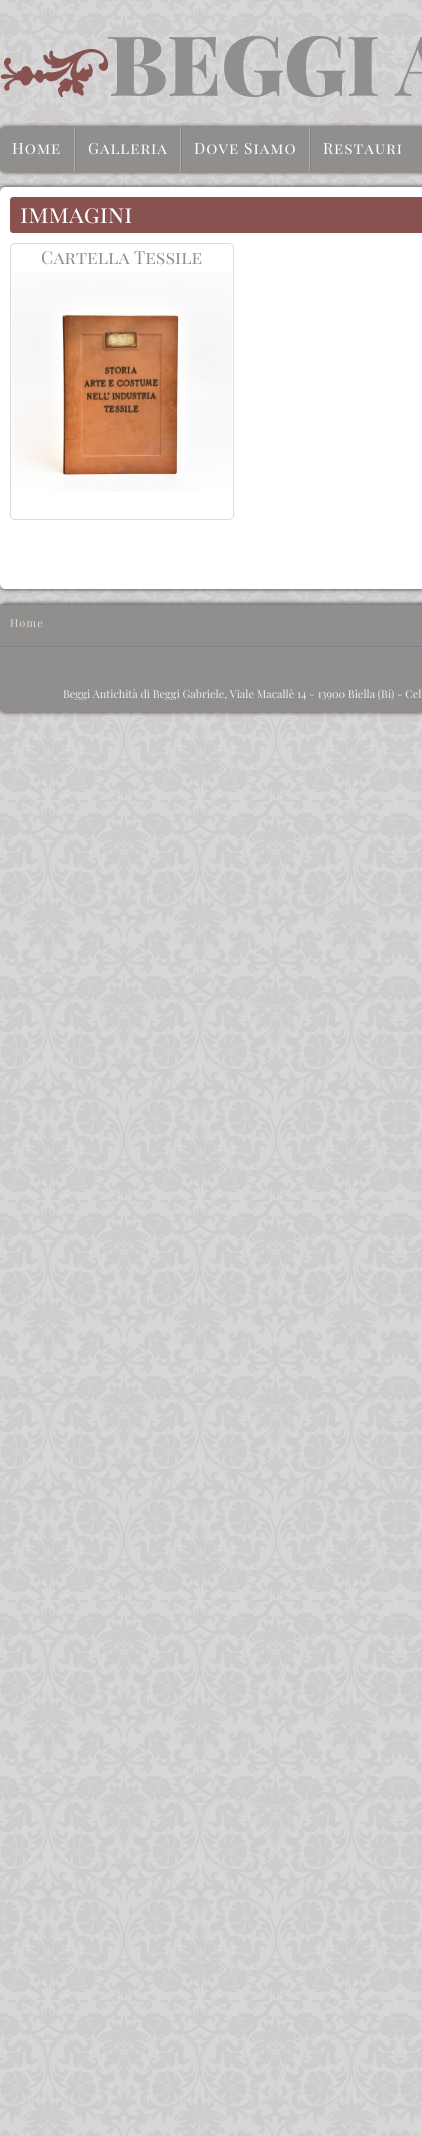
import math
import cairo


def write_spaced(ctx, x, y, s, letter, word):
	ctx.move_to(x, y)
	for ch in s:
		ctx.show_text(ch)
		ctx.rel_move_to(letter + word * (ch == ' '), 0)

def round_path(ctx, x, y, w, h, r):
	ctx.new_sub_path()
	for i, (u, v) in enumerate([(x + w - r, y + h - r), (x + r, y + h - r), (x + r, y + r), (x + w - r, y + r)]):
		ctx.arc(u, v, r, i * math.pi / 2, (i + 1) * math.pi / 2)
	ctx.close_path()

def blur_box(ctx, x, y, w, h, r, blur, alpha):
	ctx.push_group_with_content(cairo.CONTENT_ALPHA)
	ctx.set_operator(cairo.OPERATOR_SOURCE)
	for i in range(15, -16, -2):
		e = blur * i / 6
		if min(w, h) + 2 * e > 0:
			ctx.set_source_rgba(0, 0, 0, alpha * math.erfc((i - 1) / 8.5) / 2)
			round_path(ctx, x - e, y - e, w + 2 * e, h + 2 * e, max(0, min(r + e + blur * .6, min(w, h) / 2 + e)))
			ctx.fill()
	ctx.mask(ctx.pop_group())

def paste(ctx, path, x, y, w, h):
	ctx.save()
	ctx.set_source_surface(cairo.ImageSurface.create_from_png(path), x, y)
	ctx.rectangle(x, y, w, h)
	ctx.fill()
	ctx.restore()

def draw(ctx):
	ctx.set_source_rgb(0.843, 0.843, 0.847)
	ctx.paint()
	paste(ctx, 'media/1.png', 0, 0, 422, 2136)
	paste(ctx, 'media/2.png', 0, 35, 422, 62)
	ctx.set_source_rgb(0.216, 0.176, 0.137)
	blur_box(ctx, 0, 127, 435, 45, 5, 2.5, 1)
	ctx.set_source_rgb(0.569, 0.557, 0.557)
	round_path(ctx, 0, 127, 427, 45, 5)
	ctx.fill()
	ctx.select_font_face('Playfair Display SC')
	ctx.set_font_size(15.5)
	ctx.set_source_rgb(1, 1, 1)
	write_spaced(ctx, 12, 154, 'Home', 1, 0)
	paste(ctx, 'media/3.png', 74, 127, 2, 45)
	write_spaced(ctx, 88, 154, 'Galleria', 1, 0)
	paste(ctx, 'media/3.png', 180, 127, 2, 45)
	write_spaced(ctx, 194, 154, 'Dove Siamo', 1, 0)
	paste(ctx, 'media/3.png', 309, 127, 2, 45)
	write_spaced(ctx, 323, 154, 'Restauri', 1, 0)
	ctx.set_source_rgb(0.216, 0.176, 0.137)
	blur_box(ctx, 0, 187, 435, 402, 5, 2.5, 1)
	ctx.set_source_rgb(1, 1, 1)
	round_path(ctx, 0, 187, 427, 402, 5)
	ctx.fill()
	ctx.set_source_rgb(0.533, 0.322, 0.318)
	round_path(ctx, 10, 197, 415, 36, 3)
	ctx.fill()
	ctx.set_font_size(24)
	ctx.set_source_rgb(1, 1, 1)
	ctx.move_to(20, 223)
	ctx.show_text('immagini')
	round_path(ctx, 10.5, 243.5, 223, 276, 4.5)
	ctx.set_source_rgb(0.855, 0.855, 0.855)
	ctx.set_line_width(1)
	ctx.stroke()
	ctx.set_font_size(18)
	ctx.set_source_rgb(0.569, 0.557, 0.557)
	ctx.move_to(41, 264)
	ctx.show_text('Cartella Tessile')
	paste(ctx, 'media/4.png', 12, 272, 220, 220)
	ctx.set_source_rgb(0.216, 0.176, 0.137)
	blur_box(ctx, 0, 604, 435, 108, 5, 2.5, 1)
	ctx.set_source_rgb(0.569, 0.557, 0.557)
	round_path(ctx, 0, 604, 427, 108, 5)
	ctx.fill()
	ctx.new_path()
	ctx.move_to(0, 604.5)
	ctx.line_to(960, 604.5)
	ctx.set_source_rgb(0.443, 0.459, 0.471)
	ctx.set_dash([1, 1])
	ctx.stroke()
	ctx.select_font_face('Playfair Display')
	ctx.set_font_size(11)
	ctx.set_source_rgb(0.863, 0.851, 0.831)
	write_spaced(ctx, 10, 627, 'Home', 1, 0)
	ctx.new_path()
	ctx.move_to(0, 646.5)
	ctx.line_to(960, 646.5)
	ctx.set_source_rgb(0.443, 0.459, 0.471)
	ctx.stroke()
	ctx.set_font_size(10.95)
	ctx.set_source_rgb(0.933, 0.933, 0.933)
	ctx.move_to(63, 698)
	ctx.show_text('Beggi Antichità di Beggi Gabriele, Viale Macallè 14 - 13900 Biella (Bi) - Cel')


surface = cairo.ImageSurface(cairo.FORMAT_RGB24, 422, 2136)
ctx = cairo.Context(surface)
options = cairo.FontOptions()
options.set_hint_metrics(cairo.HINT_METRICS_OFF)
options.set_hint_style(cairo.HINT_STYLE_NONE)
ctx.set_font_options(options)
ctx.set_miter_limit(4)
draw(ctx)
surface.write_to_png('image.png')
